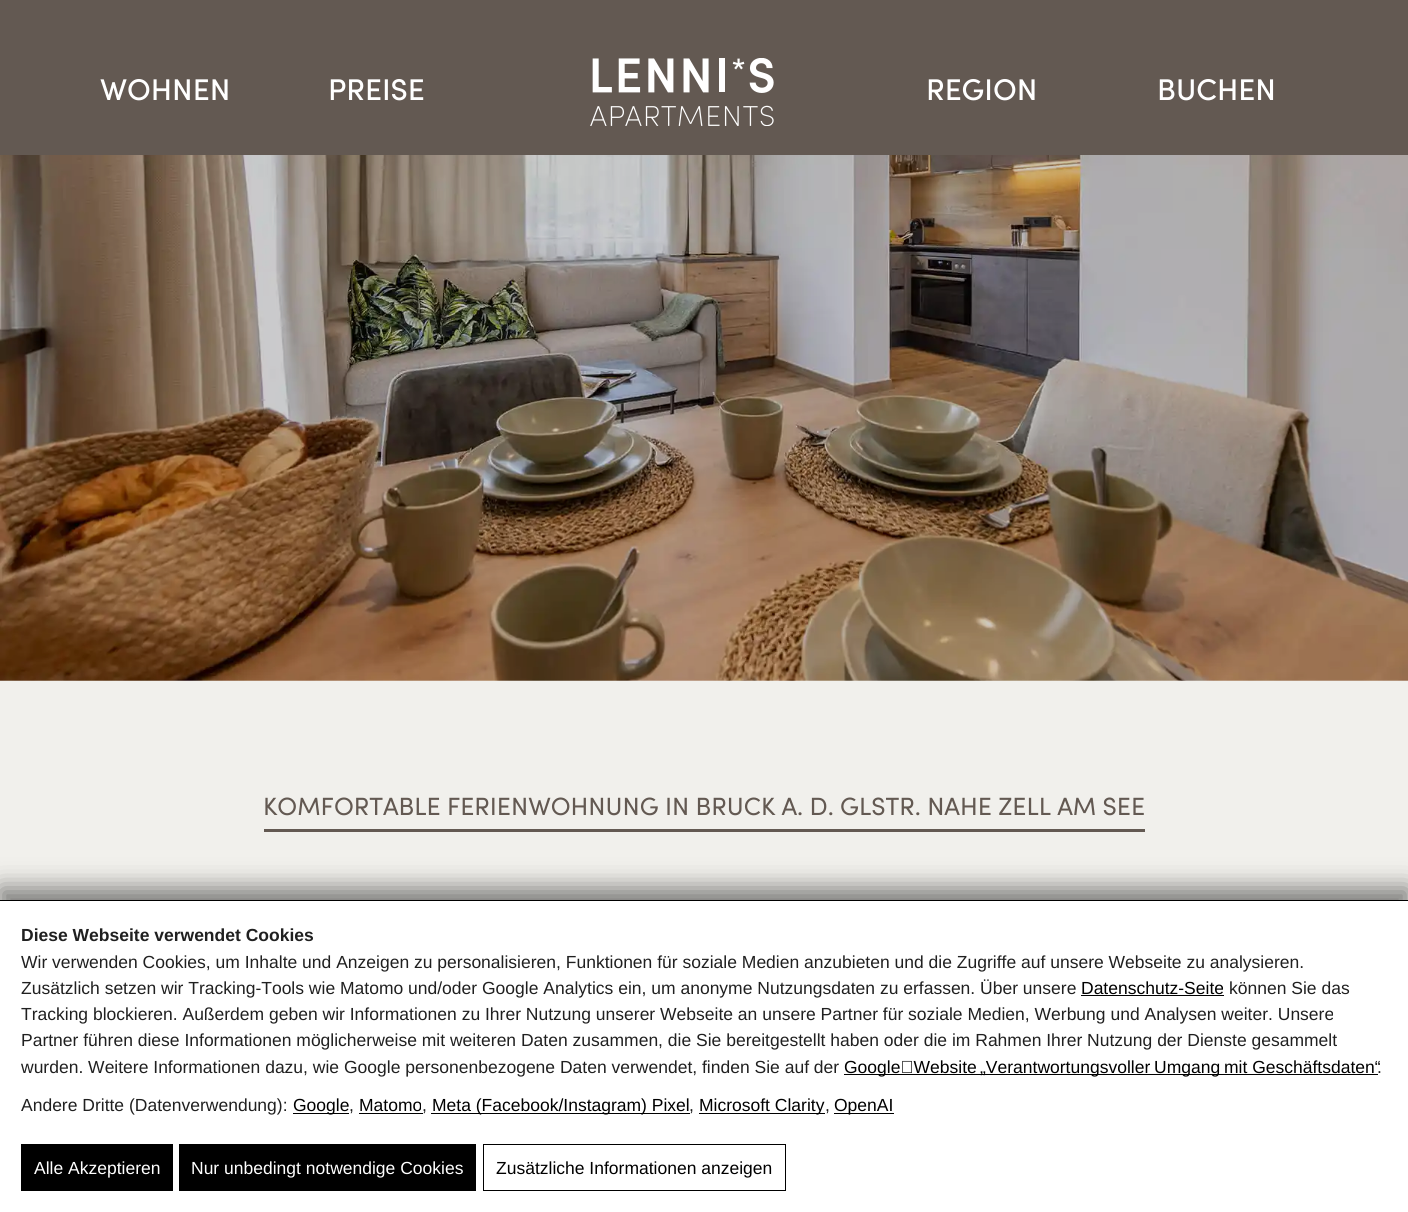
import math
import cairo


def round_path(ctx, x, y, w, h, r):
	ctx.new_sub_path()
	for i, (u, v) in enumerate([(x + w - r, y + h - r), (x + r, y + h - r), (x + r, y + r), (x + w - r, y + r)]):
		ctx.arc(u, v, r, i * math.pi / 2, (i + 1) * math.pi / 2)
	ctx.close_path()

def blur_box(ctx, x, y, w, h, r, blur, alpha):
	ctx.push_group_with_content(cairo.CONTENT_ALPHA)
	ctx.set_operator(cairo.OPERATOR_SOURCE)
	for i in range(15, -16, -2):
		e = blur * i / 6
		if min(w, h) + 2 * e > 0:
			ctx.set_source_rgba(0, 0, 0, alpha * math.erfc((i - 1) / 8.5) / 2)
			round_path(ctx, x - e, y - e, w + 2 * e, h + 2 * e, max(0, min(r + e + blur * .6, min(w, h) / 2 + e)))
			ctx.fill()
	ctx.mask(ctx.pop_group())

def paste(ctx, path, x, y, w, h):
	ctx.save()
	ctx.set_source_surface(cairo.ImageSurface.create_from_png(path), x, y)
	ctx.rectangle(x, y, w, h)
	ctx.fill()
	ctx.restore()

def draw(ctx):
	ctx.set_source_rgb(1, 1, 1)
	ctx.paint()
	ctx.set_source_rgb(0.388, 0.349, 0.322)
	ctx.rectangle(0, 0, 1408, 155)
	ctx.fill()
	ctx.select_font_face('Sofia Medium')
	ctx.set_font_size(30)
	ctx.set_source_rgb(1, 1, 1)
	ctx.move_to(100, 100)
	ctx.show_text('WOHNEN')
	ctx.move_to(328, 100)
	ctx.show_text('PREISE')
	paste(ctx, 'media/1.png', 590, 58, 184, 68)
	ctx.move_to(926, 100)
	ctx.show_text('REGION')
	ctx.move_to(1157, 100)
	ctx.show_text('BUCHEN')
	paste(ctx, 'media/2.png', 0, 155, 1408, 526)
	ctx.set_source_rgb(0.945, 0.941, 0.925)
	ctx.rectangle(0, 681, 1408, 219)
	ctx.fill()
	ctx.set_source_rgb(0.388, 0.349, 0.322)
	ctx.rectangle(264, 829, 881, 3)
	ctx.fill()
	ctx.select_font_face('Sofia')
	ctx.set_font_size(25)
	ctx.move_to(263, 815)
	ctx.show_text('KOMFORTABLE FERIENWOHNUNG IN BRUCK A. D. GLSTR. NAHE ZELL AM SEE')
	ctx.set_source_rgb(0, 0, 0)
	blur_box(ctx, 0, 888, 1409, 312, 0, 12.5, 0.5)
	ctx.set_source_rgb(1, 1, 1)
	ctx.rectangle(0, 901, 1408, 311)
	ctx.fill()
	ctx.set_source_rgb(0, 0, 0)
	ctx.rectangle(0, 900, 1408, 1)
	ctx.fill()
	ctx.select_font_face('Liberation Sans', cairo.FONT_SLANT_NORMAL, cairo.FONT_WEIGHT_BOLD)
	ctx.set_font_size(17.5)
	ctx.set_source_rgb(0.125, 0.125, 0.125)
	ctx.move_to(21, 941)
	ctx.show_text('Diese Webseite verwendet Cookies')
	ctx.select_font_face('Liberation Sans')
	ctx.move_to(21, 968)
	ctx.show_text('Wir verwenden Cookies, um Inhalte und Anzeigen zu personalisieren, Funktionen für soziale Medien anzubieten und die Zugriffe auf unsere Webseite zu analysieren.')
	ctx.move_to(21, 994)
	ctx.show_text('Zusätzlich setzen wir Tracking-Tools wie Matomo und/oder Google Analytics ein, um anonyme Nutzungsdaten zu erfassen. Über unsere')
	ctx.set_source_rgb(0, 0, 0)
	ctx.move_to(1081, 994)
	ctx.show_text('Datenschutz-Seite')
	ctx.rectangle(1081, 995, 143, 1)
	ctx.fill()
	ctx.set_source_rgb(0.125, 0.125, 0.125)
	for x, y, s in [
		(1229, 994, 'können Sie das'),
		(21, 1020, 'Tracking blockieren. Außerdem geben wir Informationen zu Ihrer Nutzung unserer Webseite an unsere Partner für soziale Medien, Werbung und Analysen weiter. Unsere'),
		(21, 1046, 'Partner führen diese Informationen möglicherweise mit weiteren Daten zusammen, die Sie bereitgestellt haben oder die im Rahmen Ihrer Nutzung der Dienste gesammelt'),
		(21, 1073, 'wurden. Weitere Informationen dazu, wie Google personenbezogene Daten verwendet, finden Sie auf der'),
	]:
		ctx.move_to(x, y)
		ctx.show_text(s)
	ctx.set_source_rgb(0, 0, 0)
	ctx.rectangle(844, 1074, 534, 1)
	ctx.fill()
	ctx.move_to(844, 1073)
	ctx.show_text('Google‑Website')
	ctx.move_to(980, 1073)
	ctx.show_text('„Verantwortungsvoller')
	ctx.move_to(1154, 1073)
	ctx.show_text('Umgang')
	ctx.move_to(1224, 1073)
	ctx.show_text('mit Geschäftsdaten“')
	ctx.set_source_rgb(0.125, 0.125, 0.125)
	ctx.move_to(1377, 1073)
	ctx.show_text('.')
	ctx.move_to(21, 1111)
	ctx.show_text('Andere Dritte (Datenverwendung):')
	ctx.set_source_rgb(0, 0, 0)
	ctx.rectangle(293, 1113, 56, 1)
	ctx.fill()
	ctx.move_to(293, 1111)
	ctx.show_text('Google')
	ctx.set_source_rgb(0.125, 0.125, 0.125)
	ctx.move_to(349, 1111)
	ctx.show_text(',')
	ctx.set_source_rgb(0, 0, 0)
	ctx.move_to(359, 1111)
	ctx.show_text('Matomo')
	ctx.rectangle(359, 1113, 64, 1)
	ctx.fill()
	ctx.set_source_rgb(0.125, 0.125, 0.125)
	ctx.move_to(422, 1111)
	ctx.show_text(',')
	ctx.set_source_rgb(0, 0, 0)
	ctx.rectangle(431, 1113, 259, 1)
	ctx.fill()
	ctx.move_to(432, 1111)
	ctx.show_text('Meta (Facebook/Instagram) Pixel')
	ctx.set_source_rgb(0.125, 0.125, 0.125)
	ctx.move_to(689, 1111)
	ctx.show_text(',')
	ctx.set_source_rgb(0, 0, 0)
	ctx.rectangle(699, 1113, 126, 1)
	ctx.fill()
	ctx.move_to(699, 1111)
	ctx.show_text('Microsoft Clarity')
	ctx.set_source_rgb(0.125, 0.125, 0.125)
	ctx.move_to(825, 1111)
	ctx.show_text(',')
	ctx.set_source_rgb(0, 0, 0)
	ctx.rectangle(834, 1113, 60, 1)
	ctx.fill()
	ctx.move_to(834, 1111)
	ctx.show_text('OpenAI')
	ctx.rectangle(21, 1144, 152, 47)
	ctx.fill()
	ctx.set_source_rgb(1, 1, 1)
	ctx.move_to(34, 1174)
	ctx.show_text('Alle Akzeptieren')
	ctx.set_source_rgb(0, 0, 0)
	ctx.rectangle(179, 1144, 297, 47)
	ctx.fill()
	ctx.set_source_rgb(1, 1, 1)
	ctx.move_to(191, 1174)
	ctx.show_text('Nur unbedingt notwendige Cookies')
	ctx.rectangle(483.5, 1144.5, 302, 46)
	ctx.set_source_rgb(0, 0, 0)
	ctx.set_line_width(1)
	ctx.stroke()
	ctx.move_to(496, 1174)
	ctx.show_text('Zusätzliche Informationen anzeigen')


surface = cairo.ImageSurface(cairo.FORMAT_RGB24, 1408, 1212)
ctx = cairo.Context(surface)
options = cairo.FontOptions()
options.set_hint_metrics(cairo.HINT_METRICS_OFF)
options.set_hint_style(cairo.HINT_STYLE_NONE)
ctx.set_font_options(options)
ctx.set_miter_limit(4)
draw(ctx)
surface.write_to_png('image.png')
